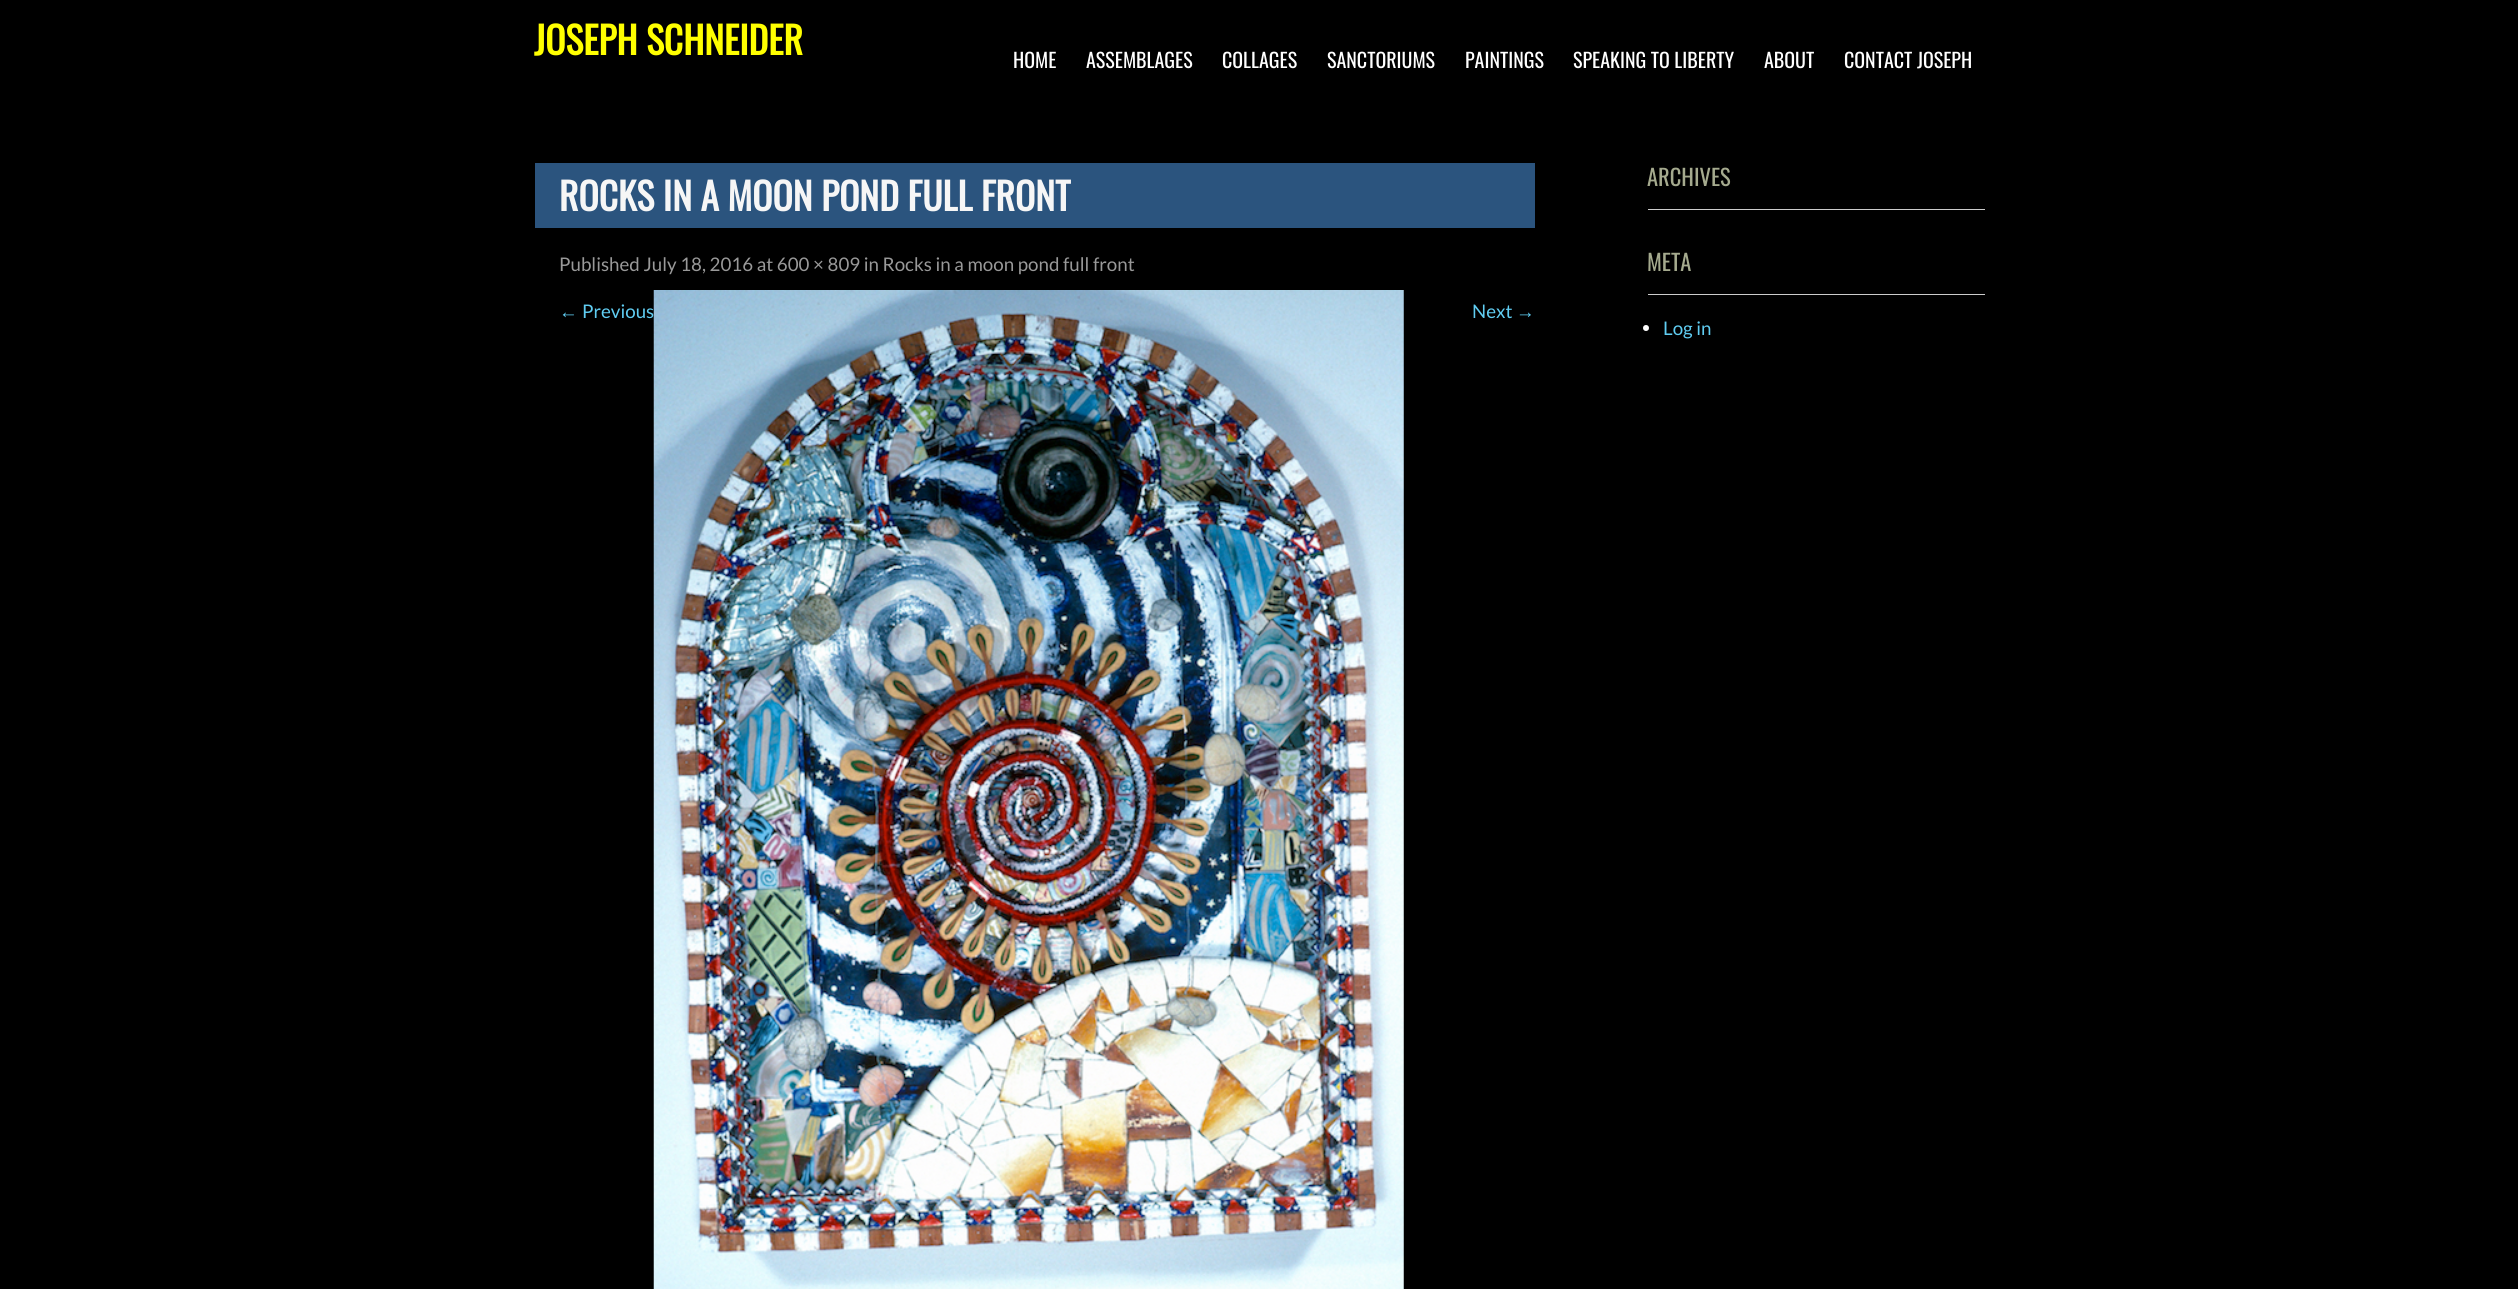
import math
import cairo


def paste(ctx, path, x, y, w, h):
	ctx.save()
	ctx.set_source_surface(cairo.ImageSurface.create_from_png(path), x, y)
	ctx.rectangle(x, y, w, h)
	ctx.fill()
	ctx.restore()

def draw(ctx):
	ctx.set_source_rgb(0, 0, 0)
	ctx.paint()
	ctx.select_font_face('Oswald', cairo.FONT_SLANT_NORMAL, cairo.FONT_WEIGHT_BOLD)
	ctx.set_font_size(37.5)
	ctx.set_source_rgb(1, 1, 0)
	ctx.move_to(534, 55)
	ctx.show_text('JOSEPH SCHNEIDER')
	ctx.select_font_face('Oswald')
	ctx.set_font_size(20)
	ctx.set_source_rgb(1, 1, 1)
	for x, y, s in [
		(1013, 68, 'HOME'),
		(1086, 68, 'ASSEMBLAGES'),
		(1222, 68, 'COLLAGES'),
		(1327, 68, 'SANCTORIUMS'),
		(1465, 68, 'PAINTINGS'),
		(1573, 68, 'SPEAKING TO LIBERTY'),
		(1764, 68, 'ABOUT'),
		(1844, 68, 'CONTACT JOSEPH'),
	]:
		ctx.move_to(x, y)
		ctx.show_text(s)
	ctx.set_source_rgb(0.169, 0.329, 0.494)
	ctx.rectangle(535, 163, 1000, 65)
	ctx.fill()
	ctx.select_font_face('Oswald', cairo.FONT_SLANT_NORMAL, cairo.FONT_WEIGHT_BOLD)
	ctx.set_font_size(37.5)
	ctx.set_source_rgb(0.961, 0.961, 0.961)
	ctx.move_to(559, 211)
	ctx.show_text('ROCKS IN A MOON POND FULL FRONT')
	ctx.select_font_face('Lato')
	ctx.set_font_size(18.75)
	ctx.set_source_rgb(0.6, 0.6, 0.6)
	ctx.move_to(559, 271)
	ctx.show_text('Published July 18, 2016 at 600 × 809 in Rocks in a moon pond full front')
	ctx.select_font_face('Liberation Serif')
	ctx.set_source_rgb(0.376, 0.804, 0.949)
	ctx.move_to(559, 318)
	ctx.show_text('←')
	ctx.select_font_face('Lato')
	ctx.move_to(582, 318)
	ctx.show_text('Previous')
	ctx.move_to(1472, 318)
	ctx.show_text('Next')
	ctx.select_font_face('Liberation Serif')
	ctx.move_to(1516, 318)
	ctx.show_text('→')
	paste(ctx, 'media/1.png', 653, 290, 751, 999)
	ctx.set_source_rgb(0.8, 0.8, 0.8)
	ctx.rectangle(1648, 209, 337, 1)
	ctx.fill()
	ctx.select_font_face('Oswald')
	ctx.set_font_size(22.5)
	ctx.set_source_rgb(0.647, 0.667, 0.557)
	ctx.move_to(1647, 186)
	ctx.show_text('ARCHIVES')
	ctx.set_source_rgb(0.8, 0.8, 0.8)
	ctx.rectangle(1648, 294, 337, 1)
	ctx.fill()
	ctx.set_source_rgb(0.647, 0.667, 0.557)
	ctx.move_to(1647, 271)
	ctx.show_text('META')
	ctx.set_source_rgb(1, 1, 1)
	ctx.new_path()
	ctx.arc(1646, 328, 3, 0, 2 * math.pi)
	ctx.fill()
	ctx.select_font_face('Lato')
	ctx.set_font_size(18.75)
	ctx.set_source_rgb(0.376, 0.804, 0.949)
	ctx.move_to(1663, 335)
	ctx.show_text('Log in')


surface = cairo.ImageSurface(cairo.FORMAT_RGB24, 2518, 1289)
ctx = cairo.Context(surface)
options = cairo.FontOptions()
options.set_hint_metrics(cairo.HINT_METRICS_OFF)
options.set_hint_style(cairo.HINT_STYLE_NONE)
ctx.set_font_options(options)
ctx.set_miter_limit(4)
draw(ctx)
surface.write_to_png('image.png')
